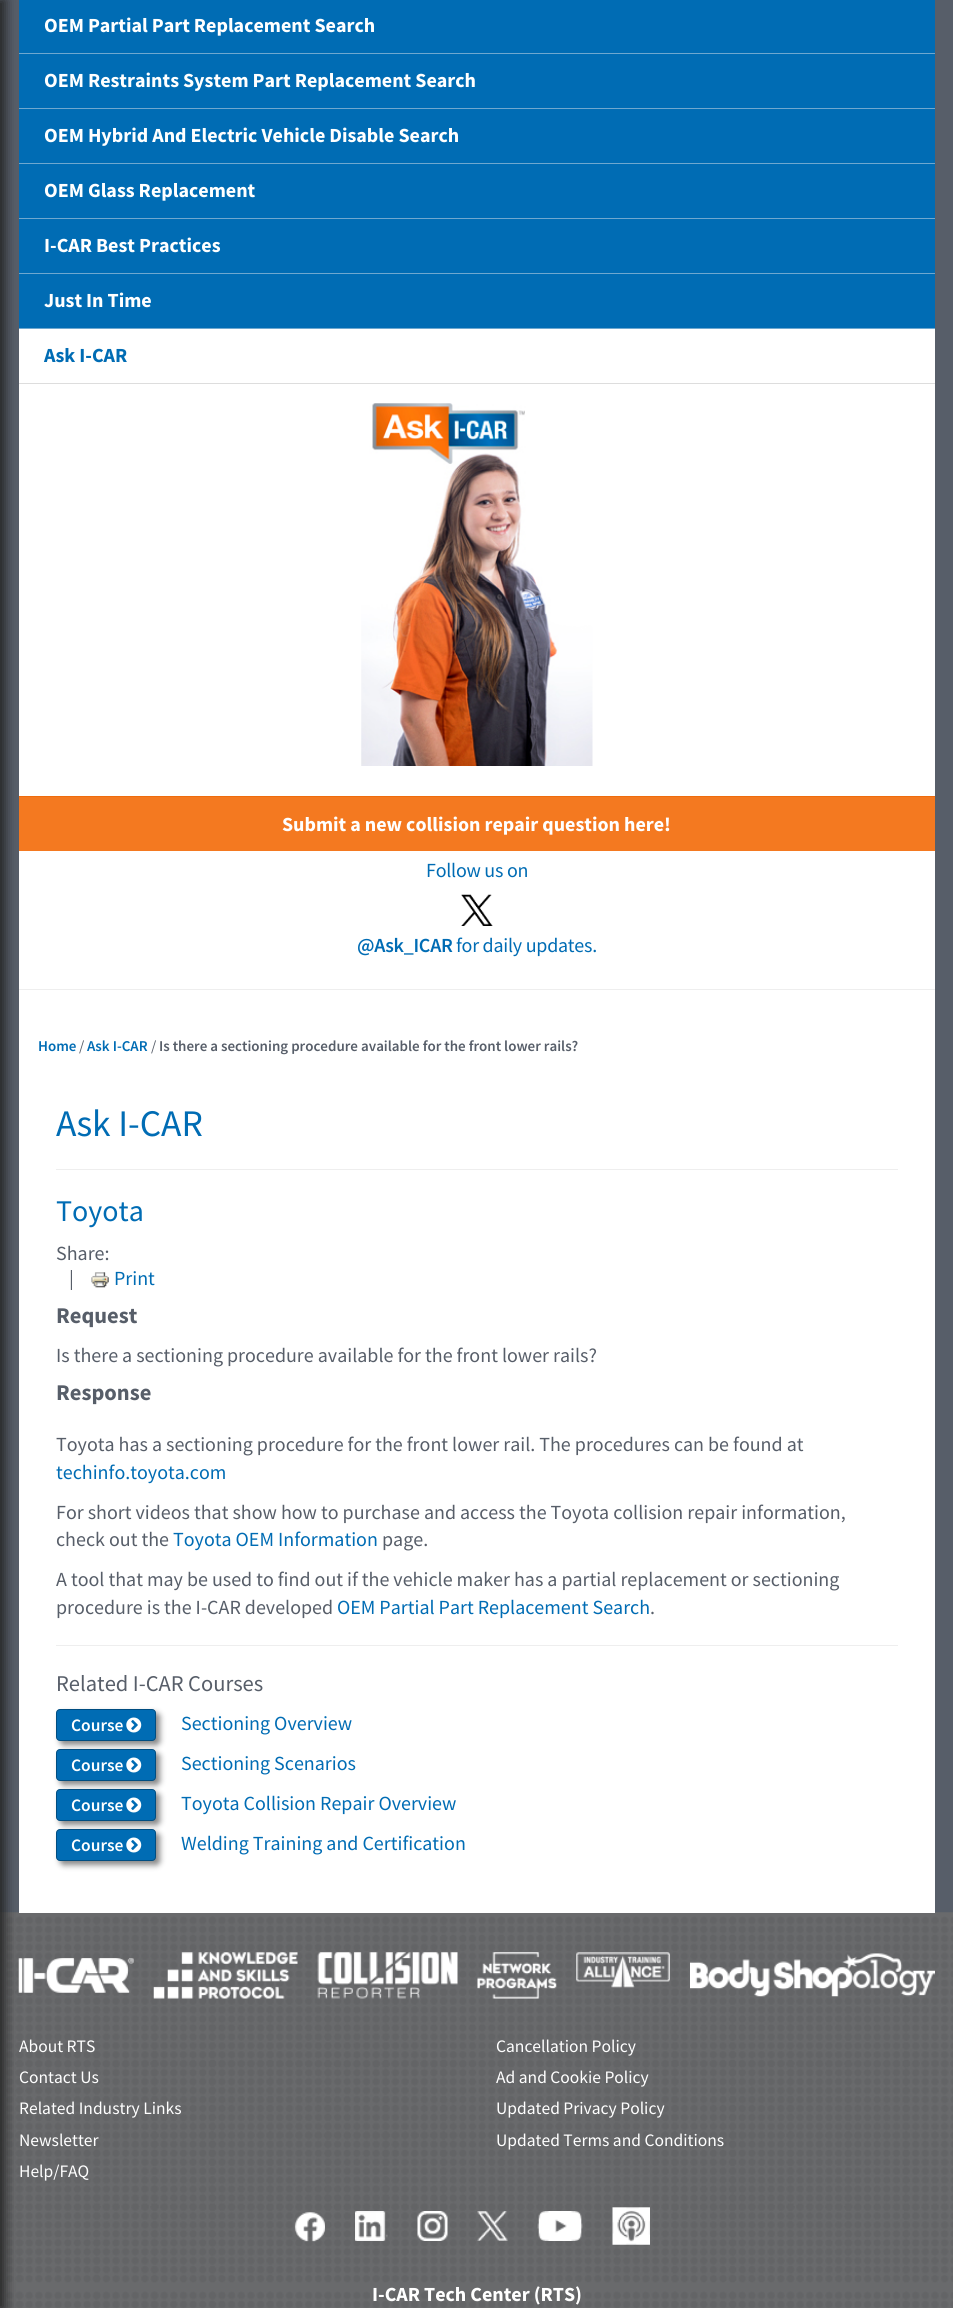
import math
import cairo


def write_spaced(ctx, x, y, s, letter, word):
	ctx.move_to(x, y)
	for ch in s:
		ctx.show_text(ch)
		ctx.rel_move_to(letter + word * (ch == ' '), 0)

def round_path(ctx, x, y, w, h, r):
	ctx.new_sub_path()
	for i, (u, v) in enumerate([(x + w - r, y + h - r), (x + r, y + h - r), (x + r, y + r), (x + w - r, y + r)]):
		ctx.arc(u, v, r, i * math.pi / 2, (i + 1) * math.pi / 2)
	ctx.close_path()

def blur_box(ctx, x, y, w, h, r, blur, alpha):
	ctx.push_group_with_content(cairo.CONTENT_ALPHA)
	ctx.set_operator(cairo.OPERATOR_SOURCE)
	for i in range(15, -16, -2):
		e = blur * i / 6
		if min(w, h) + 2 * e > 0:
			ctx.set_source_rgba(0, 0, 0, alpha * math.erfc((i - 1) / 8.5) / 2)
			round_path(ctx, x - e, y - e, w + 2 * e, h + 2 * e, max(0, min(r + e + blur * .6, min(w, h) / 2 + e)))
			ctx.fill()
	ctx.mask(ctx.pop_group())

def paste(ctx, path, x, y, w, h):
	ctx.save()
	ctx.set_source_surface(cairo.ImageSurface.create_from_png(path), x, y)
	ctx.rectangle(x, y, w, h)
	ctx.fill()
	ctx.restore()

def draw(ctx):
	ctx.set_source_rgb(0.341, 0.369, 0.412)
	ctx.paint()
	paste(ctx, 'media/5.png', 0, 1912, 953, 396)
	ctx.set_source_rgb(1, 1, 1)
	ctx.rectangle(19, 384, 916, 1529)
	ctx.fill()
	ctx.set_source_rgb(0, 0.424, 0.706)
	ctx.rectangle(19, 0, 916, 53)
	ctx.rectangle(19, 54, 916, 54)
	ctx.fill()
	ctx.set_source_rgb(0.435, 0.659, 0.812)
	ctx.rectangle(19, 53, 916, 1)
	ctx.fill()
	ctx.set_source_rgb(0, 0.424, 0.706)
	ctx.rectangle(19, 109, 916, 54)
	ctx.fill()
	ctx.set_source_rgb(0.435, 0.659, 0.812)
	ctx.rectangle(19, 108, 916, 1)
	ctx.fill()
	ctx.set_source_rgb(0, 0.424, 0.706)
	ctx.rectangle(19, 164, 916, 54)
	ctx.fill()
	ctx.set_source_rgb(0.435, 0.659, 0.812)
	ctx.rectangle(19, 163, 916, 1)
	ctx.fill()
	ctx.set_source_rgb(0, 0.424, 0.706)
	ctx.rectangle(19, 219, 916, 54)
	ctx.fill()
	ctx.set_source_rgb(0.435, 0.659, 0.812)
	ctx.rectangle(19, 218, 916, 1)
	ctx.fill()
	ctx.set_source_rgb(0, 0.424, 0.706)
	ctx.rectangle(19, 274, 916, 54)
	ctx.fill()
	ctx.set_source_rgb(0.435, 0.659, 0.812)
	ctx.rectangle(19, 273, 916, 1)
	ctx.rectangle(19, 328, 916, 1)
	ctx.fill()
	ctx.set_source_rgb(1, 1, 1)
	ctx.rectangle(19, 329, 916, 54)
	ctx.fill()
	ctx.set_source_rgb(0.867, 0.867, 0.867)
	ctx.rectangle(19, 383, 916, 1)
	ctx.fill()
	ctx.set_source_rgb(0.957, 0.475, 0.125)
	ctx.rectangle(19, 797, 916, 54)
	ctx.fill()
	ctx.set_source_rgb(0.937, 0.42, 0.047)
	ctx.rectangle(19, 796, 916, 1)
	ctx.fill()
	ctx.set_source_rgb(0.933, 0.933, 0.933)
	ctx.rectangle(19, 989, 916, 1)
	ctx.fill()
	paste(ctx, 'media/6.png', 18, 1958, 116, 35)
	ctx.set_source_rgb(0.133, 0.133, 0.133)
	blur_box(ctx, -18, 0, 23, 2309, 0, 6, 1)
	ctx.select_font_face('Source Sans Pro', cairo.FONT_SLANT_NORMAL, cairo.FONT_WEIGHT_BOLD)
	ctx.set_font_size(20)
	ctx.set_source_rgb(1, 1, 1)
	for x, y, s in [
		(44, 32, 'OEM Partial Part Replacement Search'),
		(44, 87, 'OEM Restraints System Part Replacement Search'),
		(44, 142, 'OEM Hybrid And Electric Vehicle Disable Search'),
		(44, 197, 'OEM Glass Replacement'),
		(44, 252, 'I-CAR Best Practices'),
		(44, 307, 'Just In Time'),
	]:
		ctx.move_to(x, y)
		ctx.show_text(s)
	ctx.set_source_rgb(0, 0.424, 0.706)
	ctx.move_to(44, 362)
	ctx.show_text('Ask I-CAR')
	paste(ctx, 'media/1.png', 361, 403, 232, 363)
	ctx.set_source_rgb(1, 1, 1)
	ctx.move_to(282, 831)
	ctx.show_text('Submit a new collision repair question here!')
	ctx.select_font_face('Source Sans Pro')
	ctx.set_source_rgb(0, 0.424, 0.706)
	write_spaced(ctx, 426, 877, 'Follow us on', -0.25, 0)
	paste(ctx, 'media/2.png', 461, 894, 32, 32)
	ctx.select_font_face('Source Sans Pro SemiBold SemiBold')
	write_spaced(ctx, 357, 952, '@Ask_ICAR', -0.25, 0)
	ctx.select_font_face('Source Sans Pro')
	write_spaced(ctx, 456, 952, 'for daily updates.', -0.25, 0)
	ctx.select_font_face('Source Sans Pro SemiBold SemiBold')
	ctx.set_font_size(15)
	ctx.move_to(38, 1051)
	ctx.show_text('Home')
	ctx.select_font_face('Source Sans Pro')
	ctx.set_source_rgb(0.341, 0.369, 0.412)
	ctx.move_to(79, 1051)
	ctx.show_text('/')
	ctx.select_font_face('Source Sans Pro SemiBold SemiBold')
	ctx.set_source_rgb(0, 0.424, 0.706)
	ctx.move_to(87, 1051)
	ctx.show_text('Ask I-CAR')
	ctx.select_font_face('Source Sans Pro')
	ctx.set_source_rgb(0.341, 0.369, 0.412)
	ctx.move_to(151, 1051)
	ctx.show_text('/')
	ctx.select_font_face('Source Sans Pro SemiBold SemiBold')
	ctx.move_to(159, 1051)
	ctx.show_text('Is there a sectioning procedure available for the front lower rails?')
	ctx.select_font_face('Source Sans Pro')
	ctx.set_font_size(37.5)
	ctx.set_source_rgb(0, 0.424, 0.706)
	ctx.move_to(56, 1136)
	ctx.show_text('Ask I-CAR')
	ctx.set_source_rgb(0.933, 0.933, 0.933)
	ctx.rectangle(56, 1169, 842, 1)
	ctx.fill()
	ctx.set_font_size(30)
	ctx.set_source_rgb(0, 0.424, 0.706)
	ctx.move_to(56, 1221)
	ctx.show_text('Toyota')
	ctx.set_font_size(20)
	ctx.set_source_rgb(0.341, 0.369, 0.412)
	ctx.move_to(56, 1260)
	ctx.show_text('Share:')
	ctx.move_to(69, 1285)
	ctx.show_text('|')
	paste(ctx, 'media/3.png', 91, 1272, 18, 16)
	ctx.set_source_rgb(0, 0.424, 0.706)
	ctx.move_to(114, 1285)
	ctx.show_text('Print')
	ctx.select_font_face('Source Sans Pro', cairo.FONT_SLANT_NORMAL, cairo.FONT_WEIGHT_BOLD)
	ctx.set_font_size(22.5)
	ctx.set_source_rgb(0.341, 0.369, 0.412)
	ctx.move_to(56, 1323)
	ctx.show_text('Request')
	ctx.select_font_face('Source Sans Pro')
	ctx.set_font_size(20)
	ctx.move_to(56, 1362)
	ctx.show_text('Is there a sectioning procedure available for the front lower rails?')
	ctx.select_font_face('Source Sans Pro', cairo.FONT_SLANT_NORMAL, cairo.FONT_WEIGHT_BOLD)
	ctx.set_font_size(22.5)
	ctx.move_to(56, 1400)
	ctx.show_text('Response')
	ctx.select_font_face('Source Sans Pro')
	ctx.set_font_size(20)
	ctx.move_to(56, 1451)
	ctx.show_text('Toyota has a sectioning procedure for the front lower rail. The procedures can be found at')
	ctx.set_source_rgb(0, 0.424, 0.706)
	ctx.move_to(56, 1479)
	ctx.show_text('techinfo.toyota.com')
	ctx.set_source_rgb(0.341, 0.369, 0.412)
	ctx.move_to(56, 1519)
	ctx.show_text('For short videos that show how to purchase and access the Toyota collision repair information,')
	ctx.move_to(56, 1546)
	ctx.show_text('check out the')
	ctx.set_source_rgb(0, 0.424, 0.706)
	ctx.move_to(173, 1546)
	ctx.show_text('Toyota OEM Information')
	ctx.set_source_rgb(0.341, 0.369, 0.412)
	for x, y, s in [
		(382, 1546, 'page.'),
		(56, 1586, 'A tool that may be used to find out if the vehicle maker has a partial replacement or sectioning'),
		(56, 1614, 'procedure is the I-CAR developed'),
	]:
		ctx.move_to(x, y)
		ctx.show_text(s)
	ctx.set_source_rgb(0, 0.424, 0.706)
	ctx.move_to(337, 1614)
	ctx.show_text('OEM Partial Part Replacement Search')
	ctx.set_source_rgb(0.341, 0.369, 0.412)
	ctx.move_to(650, 1614)
	ctx.show_text('.')
	ctx.set_source_rgb(0.933, 0.933, 0.933)
	ctx.rectangle(56, 1645, 842, 1)
	ctx.fill()
	ctx.set_font_size(22.5)
	ctx.set_source_rgb(0.341, 0.369, 0.412)
	ctx.move_to(56, 1691)
	ctx.show_text('Related I-CAR Courses')
	ctx.set_source_rgb(0.533, 0.533, 0.533)
	blur_box(ctx, 60, 1713, 100, 32, 4, 3, 1)
	ctx.set_source_rgb(0, 0.424, 0.706)
	round_path(ctx, 56.5, 1709.5, 99, 31, 3.5)
	ctx.fill_preserve()
	ctx.set_source_rgb(0, 0.302, 0.506)
	ctx.set_line_width(1)
	ctx.stroke()
	ctx.select_font_face('Source Sans Pro SemiBold SemiBold')
	ctx.set_font_size(17.5)
	ctx.set_source_rgb(1, 1, 1)
	ctx.move_to(71, 1731)
	ctx.show_text('Course')
	paste(ctx, 'media/4.png', 126, 1717, 16, 16)
	ctx.select_font_face('Source Sans Pro')
	ctx.set_font_size(20)
	ctx.set_source_rgb(0, 0.424, 0.706)
	ctx.move_to(181, 1730)
	ctx.show_text('Sectioning Overview')
	ctx.set_source_rgb(0.533, 0.533, 0.533)
	blur_box(ctx, 60, 1753, 100, 32, 4, 3, 1)
	ctx.set_source_rgb(0, 0.424, 0.706)
	round_path(ctx, 56.5, 1749.5, 99, 31, 3.5)
	ctx.fill_preserve()
	ctx.set_source_rgb(0, 0.302, 0.506)
	ctx.stroke()
	ctx.select_font_face('Source Sans Pro SemiBold SemiBold')
	ctx.set_font_size(17.5)
	ctx.set_source_rgb(1, 1, 1)
	ctx.move_to(71, 1771)
	ctx.show_text('Course')
	paste(ctx, 'media/4.png', 126, 1757, 16, 16)
	ctx.select_font_face('Source Sans Pro')
	ctx.set_font_size(20)
	ctx.set_source_rgb(0, 0.424, 0.706)
	ctx.move_to(181, 1770)
	ctx.show_text('Sectioning Scenarios')
	ctx.set_source_rgb(0.533, 0.533, 0.533)
	blur_box(ctx, 60, 1793, 100, 32, 4, 3, 1)
	ctx.set_source_rgb(0, 0.424, 0.706)
	round_path(ctx, 56.5, 1789.5, 99, 31, 3.5)
	ctx.fill_preserve()
	ctx.set_source_rgb(0, 0.302, 0.506)
	ctx.stroke()
	ctx.select_font_face('Source Sans Pro SemiBold SemiBold')
	ctx.set_font_size(17.5)
	ctx.set_source_rgb(1, 1, 1)
	ctx.move_to(71, 1811)
	ctx.show_text('Course')
	paste(ctx, 'media/4.png', 126, 1797, 16, 16)
	ctx.select_font_face('Source Sans Pro')
	ctx.set_font_size(20)
	ctx.set_source_rgb(0, 0.424, 0.706)
	ctx.move_to(181, 1810)
	ctx.show_text('Toyota Collision Repair Overview')
	ctx.set_source_rgb(0.533, 0.533, 0.533)
	blur_box(ctx, 60, 1833, 100, 32, 4, 3, 1)
	ctx.set_source_rgb(0, 0.424, 0.706)
	round_path(ctx, 56.5, 1829.5, 99, 31, 3.5)
	ctx.fill_preserve()
	ctx.set_source_rgb(0, 0.302, 0.506)
	ctx.stroke()
	ctx.select_font_face('Source Sans Pro SemiBold SemiBold')
	ctx.set_font_size(17.5)
	ctx.set_source_rgb(1, 1, 1)
	ctx.move_to(71, 1851)
	ctx.show_text('Course')
	paste(ctx, 'media/4.png', 126, 1837, 16, 16)
	ctx.select_font_face('Source Sans Pro')
	ctx.set_font_size(20)
	ctx.set_source_rgb(0, 0.424, 0.706)
	ctx.move_to(181, 1850)
	ctx.show_text('Welding Training and Certification')
	paste(ctx, 'media/7.png', 153, 1952, 145, 47)
	paste(ctx, 'media/8.png', 317, 1952, 141, 47)
	paste(ctx, 'media/9.png', 477, 1952, 80, 47)
	paste(ctx, 'media/10.png', 576, 1952, 94, 36)
	paste(ctx, 'media/11.png', 690, 1953, 245, 44)
	ctx.set_font_size(17.5)
	ctx.set_source_rgb(1, 1, 1)
	for x, y, s in [
		(19, 2052, 'About RTS'),
		(19, 2083, 'Contact Us'),
		(19, 2114, 'Related Industry Links'),
		(19, 2146, 'Newsletter'),
		(19, 2177, 'Help/FAQ'),
		(496, 2052, 'Cancellation Policy'),
		(496, 2083, 'Ad and Cookie Policy'),
		(496, 2114, 'Updated Privacy Policy'),
		(496, 2146, 'Updated Terms and Conditions'),
	]:
		ctx.move_to(x, y)
		ctx.show_text(s)
	paste(ctx, 'media/12.png', 294, 2212, 31, 30)
	paste(ctx, 'media/13.png', 355, 2211, 33, 30)
	paste(ctx, 'media/14.png', 417, 2211, 31, 30)
	paste(ctx, 'media/15.png', 477, 2211, 31, 30)
	paste(ctx, 'media/16.png', 537, 2211, 46, 30)
	paste(ctx, 'media/17.png', 612, 2207, 38, 38)
	ctx.select_font_face('Source Sans Pro', cairo.FONT_SLANT_NORMAL, cairo.FONT_WEIGHT_BOLD)
	ctx.set_font_size(20)
	ctx.move_to(372, 2301)
	ctx.show_text('I-CAR Tech Center (RTS)')


surface = cairo.ImageSurface(cairo.FORMAT_RGB24, 953, 2308)
ctx = cairo.Context(surface)
options = cairo.FontOptions()
options.set_hint_metrics(cairo.HINT_METRICS_OFF)
options.set_hint_style(cairo.HINT_STYLE_NONE)
ctx.set_font_options(options)
ctx.set_miter_limit(4)
draw(ctx)
surface.write_to_png('image.png')
